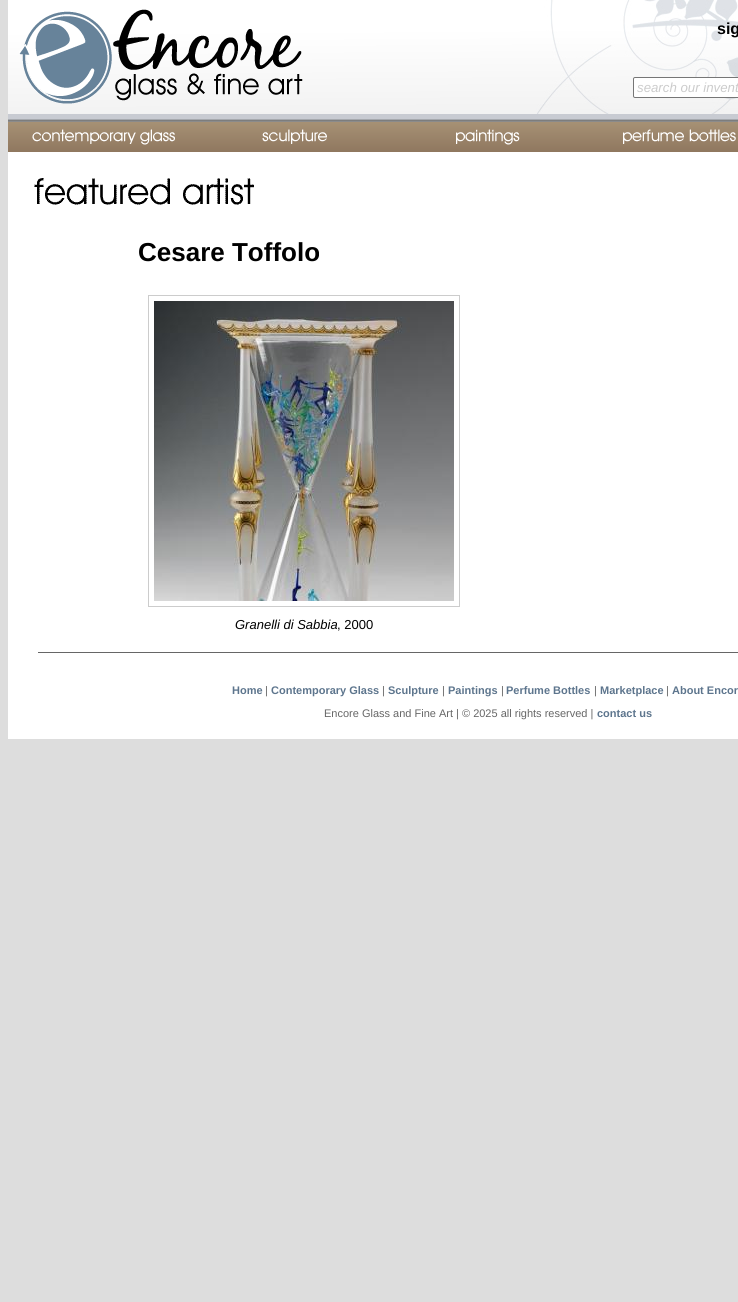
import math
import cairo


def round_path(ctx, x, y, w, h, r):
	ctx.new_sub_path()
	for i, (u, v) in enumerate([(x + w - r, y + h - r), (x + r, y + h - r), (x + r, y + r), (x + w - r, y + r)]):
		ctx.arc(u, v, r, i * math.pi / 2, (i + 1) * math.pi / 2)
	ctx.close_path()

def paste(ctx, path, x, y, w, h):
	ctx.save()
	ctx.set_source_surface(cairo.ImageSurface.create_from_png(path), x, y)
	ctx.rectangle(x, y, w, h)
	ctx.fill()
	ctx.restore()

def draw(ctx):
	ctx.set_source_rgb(0.867, 0.867, 0.867)
	ctx.paint()
	ctx.set_source_rgb(1, 1, 1)
	ctx.rectangle(8, 152, 730, 587)
	ctx.fill()
	paste(ctx, 'media/1.png', 8, 0, 730, 114)
	paste(ctx, 'media/2.png', 19, 9, 284, 95)
	ctx.select_font_face('Liberation Sans', cairo.FONT_SLANT_NORMAL, cairo.FONT_WEIGHT_BOLD)
	ctx.set_font_size(16)
	ctx.set_source_rgb(0, 0, 0)
	ctx.move_to(717, 34)
	ctx.show_text('sig')
	ctx.set_source_rgb(1, 1, 1)
	round_path(ctx, 633.5, 77.5, 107, 20, 1.5)
	ctx.fill_preserve()
	ctx.set_source_rgb(0.463, 0.463, 0.463)
	ctx.set_line_width(1)
	ctx.stroke()
	ctx.select_font_face('Liberation Sans', cairo.FONT_SLANT_ITALIC)
	ctx.set_font_size(13.25)
	ctx.set_source_rgb(0.8, 0.8, 0.8)
	ctx.move_to(637, 92)
	ctx.show_text('search our invent')
	paste(ctx, 'media/3.png', 8, 114, 730, 38)
	paste(ctx, 'media/4.png', 34, 178, 220, 27)
	ctx.select_font_face('Liberation Sans', cairo.FONT_SLANT_NORMAL, cairo.FONT_WEIGHT_BOLD)
	ctx.set_font_size(26)
	ctx.set_source_rgb(0, 0, 0)
	ctx.move_to(138, 261)
	ctx.show_text('Cesare Toffolo')
	ctx.rectangle(148.5, 295.5, 311, 311)
	ctx.set_source_rgb(0.8, 0.8, 0.8)
	ctx.stroke()
	paste(ctx, 'media/5.png', 154, 301, 300, 300)
	ctx.select_font_face('Liberation Sans', cairo.FONT_SLANT_ITALIC)
	ctx.set_font_size(13)
	ctx.set_source_rgb(0, 0, 0)
	ctx.move_to(235, 629)
	ctx.show_text('Granelli di Sabbia')
	ctx.select_font_face('Liberation Sans')
	ctx.move_to(337, 629)
	ctx.show_text(', 2000')
	ctx.set_source_rgb(0.4, 0.4, 0.4)
	ctx.rectangle(38, 652, 700, 1)
	ctx.fill()
	ctx.select_font_face('Liberation Sans', cairo.FONT_SLANT_NORMAL, cairo.FONT_WEIGHT_BOLD)
	ctx.set_font_size(11)
	ctx.set_source_rgb(0.365, 0.459, 0.553)
	ctx.move_to(232, 694)
	ctx.show_text('Home')
	ctx.select_font_face('Liberation Sans')
	ctx.set_source_rgb(0.4, 0.4, 0.4)
	ctx.move_to(265, 694)
	ctx.show_text('|')
	ctx.select_font_face('Liberation Sans', cairo.FONT_SLANT_NORMAL, cairo.FONT_WEIGHT_BOLD)
	ctx.set_source_rgb(0.365, 0.459, 0.553)
	ctx.move_to(271, 694)
	ctx.show_text('Contemporary Glass')
	ctx.select_font_face('Liberation Sans')
	ctx.set_source_rgb(0.4, 0.4, 0.4)
	ctx.move_to(382, 694)
	ctx.show_text('|')
	ctx.select_font_face('Liberation Sans', cairo.FONT_SLANT_NORMAL, cairo.FONT_WEIGHT_BOLD)
	ctx.set_source_rgb(0.365, 0.459, 0.553)
	ctx.move_to(388, 694)
	ctx.show_text('Sculpture')
	ctx.select_font_face('Liberation Sans')
	ctx.set_source_rgb(0.4, 0.4, 0.4)
	ctx.move_to(442, 694)
	ctx.show_text('|')
	ctx.select_font_face('Liberation Sans', cairo.FONT_SLANT_NORMAL, cairo.FONT_WEIGHT_BOLD)
	ctx.set_source_rgb(0.365, 0.459, 0.553)
	ctx.move_to(448, 694)
	ctx.show_text('Paintings')
	ctx.select_font_face('Liberation Sans')
	ctx.set_source_rgb(0.4, 0.4, 0.4)
	ctx.move_to(501, 694)
	ctx.show_text('|')
	ctx.select_font_face('Liberation Sans', cairo.FONT_SLANT_NORMAL, cairo.FONT_WEIGHT_BOLD)
	ctx.set_source_rgb(0.365, 0.459, 0.553)
	ctx.move_to(506, 694)
	ctx.show_text('Perfume Bottles')
	ctx.select_font_face('Liberation Sans')
	ctx.set_source_rgb(0.4, 0.4, 0.4)
	ctx.move_to(594, 694)
	ctx.show_text('|')
	ctx.select_font_face('Liberation Sans', cairo.FONT_SLANT_NORMAL, cairo.FONT_WEIGHT_BOLD)
	ctx.set_source_rgb(0.365, 0.459, 0.553)
	ctx.move_to(600, 694)
	ctx.show_text('Marketplace')
	ctx.select_font_face('Liberation Sans')
	ctx.set_source_rgb(0.4, 0.4, 0.4)
	ctx.move_to(666, 694)
	ctx.show_text('|')
	ctx.select_font_face('Liberation Sans', cairo.FONT_SLANT_NORMAL, cairo.FONT_WEIGHT_BOLD)
	ctx.set_source_rgb(0.365, 0.459, 0.553)
	ctx.move_to(672, 694)
	ctx.show_text('About Encor')
	ctx.select_font_face('Liberation Sans')
	ctx.set_source_rgb(0.4, 0.4, 0.4)
	ctx.move_to(324, 717)
	ctx.show_text('Encore Glass and Fine Art | © 2025 all rights reserved |')
	ctx.select_font_face('Liberation Sans', cairo.FONT_SLANT_NORMAL, cairo.FONT_WEIGHT_BOLD)
	ctx.set_source_rgb(0.365, 0.459, 0.553)
	ctx.move_to(597, 717)
	ctx.show_text('contact us')


surface = cairo.ImageSurface(cairo.FORMAT_RGB24, 738, 1302)
ctx = cairo.Context(surface)
options = cairo.FontOptions()
options.set_hint_metrics(cairo.HINT_METRICS_OFF)
options.set_hint_style(cairo.HINT_STYLE_NONE)
ctx.set_font_options(options)
ctx.set_miter_limit(4)
draw(ctx)
surface.write_to_png('image.png')
